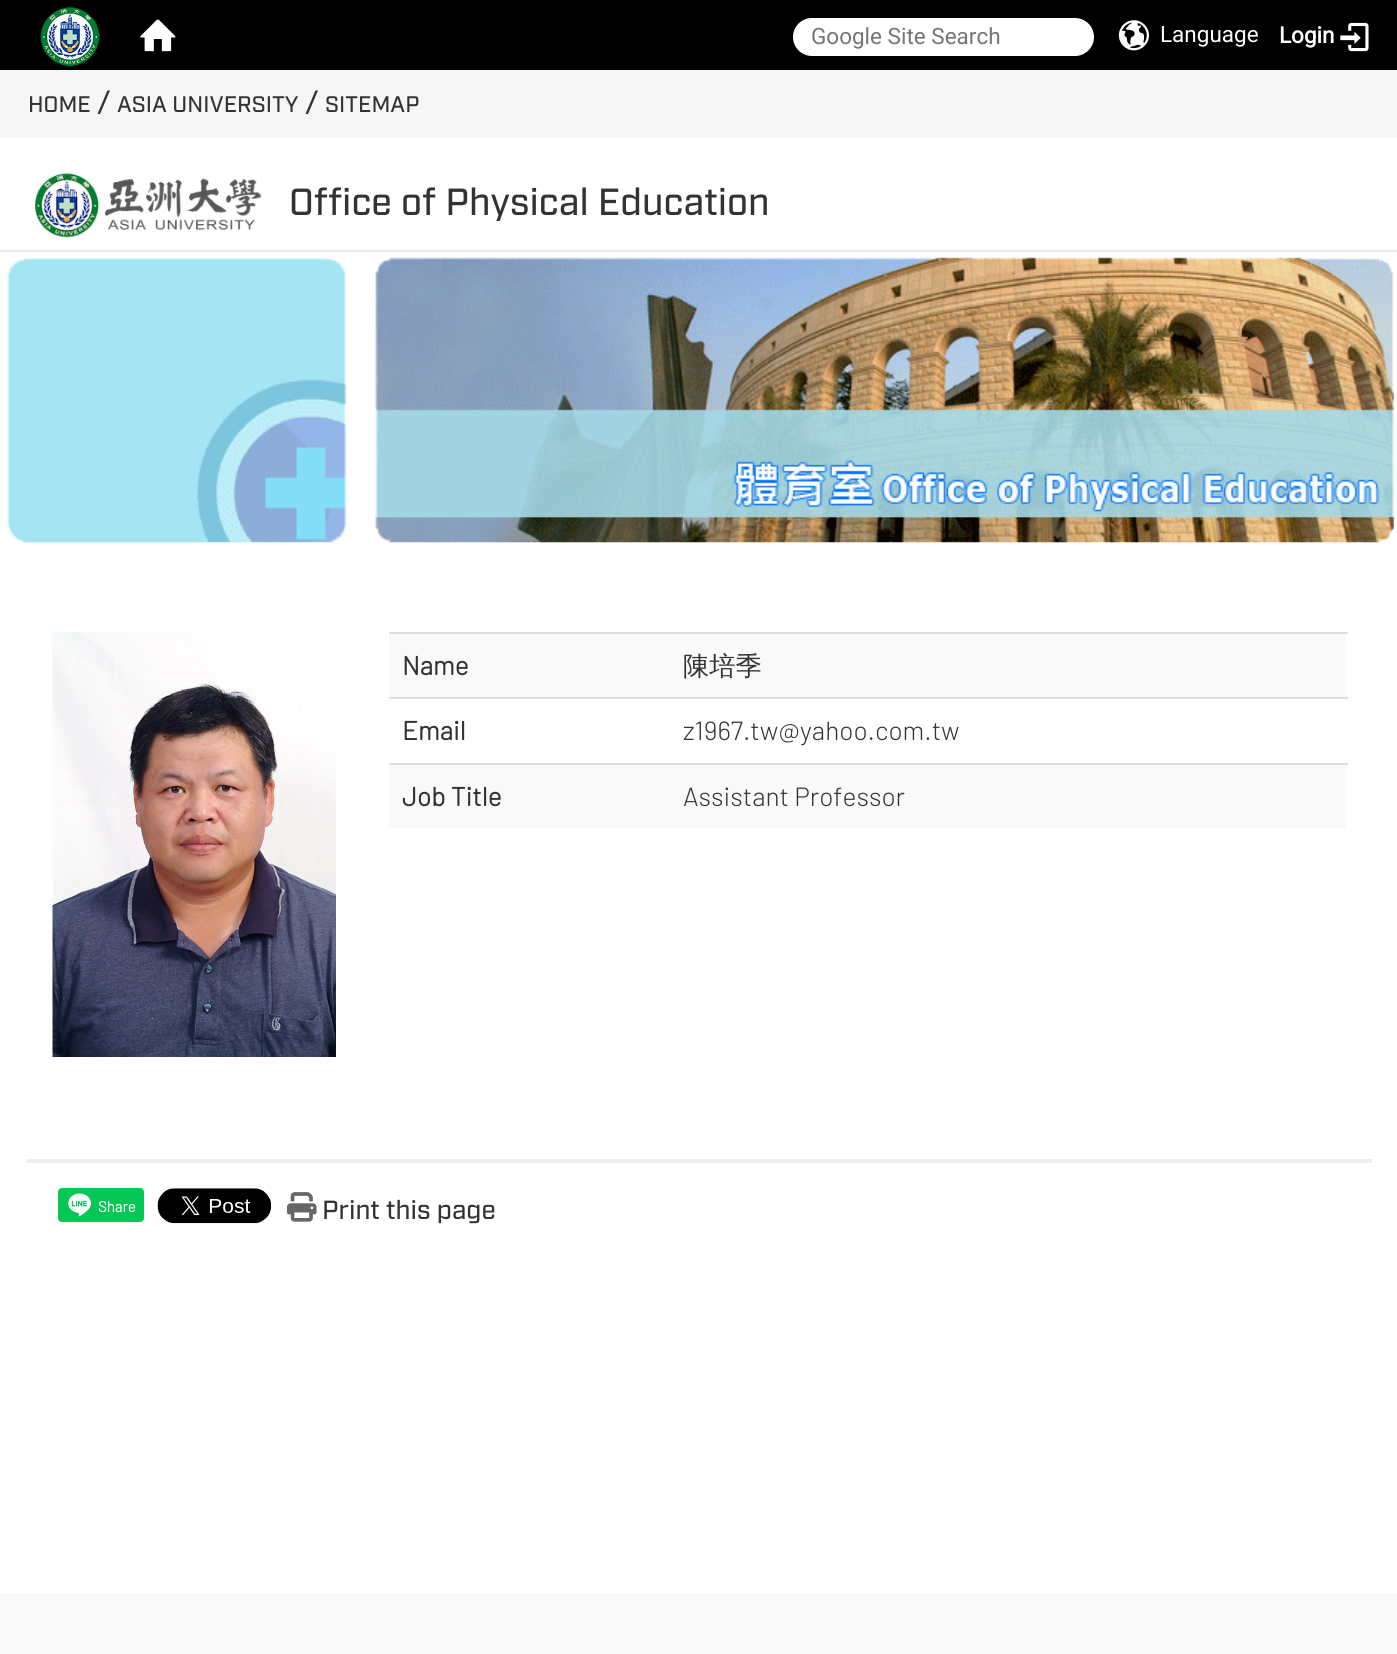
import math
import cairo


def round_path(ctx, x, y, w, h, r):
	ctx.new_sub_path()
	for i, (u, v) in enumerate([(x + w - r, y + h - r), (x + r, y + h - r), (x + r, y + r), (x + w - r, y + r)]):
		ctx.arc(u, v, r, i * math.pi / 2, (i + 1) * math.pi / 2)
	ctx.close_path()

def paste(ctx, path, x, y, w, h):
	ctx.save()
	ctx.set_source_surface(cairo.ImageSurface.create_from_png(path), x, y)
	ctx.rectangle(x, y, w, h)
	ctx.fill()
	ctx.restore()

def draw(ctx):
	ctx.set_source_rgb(0.973, 0.973, 0.973)
	ctx.paint()
	ctx.set_source_rgb(0, 0, 0)
	ctx.rectangle(0, 0, 1397, 70)
	ctx.fill()
	paste(ctx, 'media/1.png', 40, 7, 60, 60)
	paste(ctx, 'media/2.png', 140, 19, 36, 33)
	ctx.set_source_rgb(1, 1, 1)
	round_path(ctx, 793, 18, 301, 38, 19)
	ctx.fill()
	ctx.select_font_face('Roboto')
	ctx.set_font_size(22.5)
	ctx.set_source_rgb(0.459, 0.459, 0.459)
	ctx.move_to(811, 44)
	ctx.show_text('Google Site Search')
	paste(ctx, 'media/3.png', 1118, 20, 31, 31)
	ctx.set_source_rgb(1, 1, 1)
	ctx.move_to(1160, 42)
	ctx.show_text('Language')
	ctx.select_font_face('Roboto', cairo.FONT_SLANT_NORMAL, cairo.FONT_WEIGHT_BOLD)
	ctx.move_to(1279, 43)
	ctx.show_text('Login')
	paste(ctx, 'media/4.png', 1340, 22, 29, 30)
	ctx.set_source_rgb(0.961, 0.961, 0.961)
	ctx.rectangle(0, 70, 1397, 68)
	ctx.fill()
	ctx.set_source_rgb(0.91, 0.91, 0.91)
	ctx.rectangle(0, 250, 1397, 2)
	ctx.fill()
	ctx.select_font_face('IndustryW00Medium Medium')
	ctx.set_source_rgb(0.2, 0.2, 0.2)
	ctx.move_to(28, 112)
	ctx.show_text('HOME')
	ctx.set_font_size(28)
	ctx.move_to(97, 112)
	ctx.show_text('/')
	ctx.set_font_size(22.5)
	ctx.move_to(117, 112)
	ctx.show_text('ASIA UNIVERSITY')
	ctx.set_font_size(28)
	ctx.move_to(305, 112)
	ctx.show_text('/')
	ctx.set_font_size(22.5)
	ctx.move_to(325, 112)
	ctx.show_text('SITEMAP')
	ctx.set_source_rgb(1, 1, 1)
	ctx.rectangle(0, 138, 1397, 112)
	ctx.fill()
	paste(ctx, 'media/5.png', 35, 173, 226, 65)
	ctx.set_font_size(37.75)
	ctx.set_source_rgb(0.2, 0.2, 0.2)
	ctx.move_to(289, 215)
	ctx.show_text('Office of Physical Education')
	ctx.set_source_rgb(1, 1, 1)
	ctx.rectangle(0, 252, 1397, 1341)
	ctx.fill()
	paste(ctx, 'media/6.png', 7, 257, 1388, 286)
	paste(ctx, 'media/7.png', 52, 632, 284, 425)
	ctx.set_source_rgb(0.976, 0.976, 0.976)
	ctx.rectangle(389, 634, 957, 63)
	ctx.fill()
	ctx.select_font_face('Barlow', cairo.FONT_SLANT_NORMAL, cairo.FONT_WEIGHT_BOLD)
	ctx.set_font_size(26.25)
	ctx.set_source_rgb(0.2, 0.2, 0.2)
	ctx.move_to(402, 675)
	ctx.show_text('Name')
	ctx.set_source_rgb(0.867, 0.867, 0.867)
	ctx.rectangle(389, 632, 959, 2)
	ctx.fill()
	ctx.select_font_face('WenQuanYi Zen Hei Medium')
	ctx.set_source_rgb(0.2, 0.2, 0.2)
	ctx.move_to(683, 675)
	ctx.show_text('陳培季')
	ctx.select_font_face('Barlow', cairo.FONT_SLANT_NORMAL, cairo.FONT_WEIGHT_BOLD)
	ctx.move_to(402, 740)
	ctx.show_text('Email')
	ctx.set_source_rgb(0.867, 0.867, 0.867)
	ctx.rectangle(389, 697, 959, 2)
	ctx.fill()
	ctx.select_font_face('Barlow Light')
	ctx.set_source_rgb(0.2, 0.2, 0.2)
	ctx.move_to(683, 740)
	ctx.show_text('z1967.tw@yahoo.com.tw')
	ctx.set_source_rgb(0.976, 0.976, 0.976)
	ctx.rectangle(389, 765, 957, 63)
	ctx.fill()
	ctx.select_font_face('Barlow', cairo.FONT_SLANT_NORMAL, cairo.FONT_WEIGHT_BOLD)
	ctx.set_source_rgb(0.2, 0.2, 0.2)
	ctx.move_to(402, 806)
	ctx.show_text('Job Title')
	ctx.set_source_rgb(0.867, 0.867, 0.867)
	ctx.rectangle(389, 763, 959, 2)
	ctx.fill()
	ctx.select_font_face('Barlow Light')
	ctx.set_source_rgb(0.2, 0.2, 0.2)
	ctx.move_to(683, 806)
	ctx.show_text('Assistant Professor')
	ctx.set_source_rgb(0.933, 0.933, 0.933)
	ctx.rectangle(26, 1159, 1346, 4)
	ctx.fill()
	ctx.set_source_rgb(0.024, 0.78, 0.333)
	round_path(ctx, 58, 1188, 86, 34, 4)
	ctx.fill()
	paste(ctx, 'media/8.png', 68, 1193, 23, 24)
	ctx.select_font_face('Barlow', cairo.FONT_SLANT_NORMAL, cairo.FONT_WEIGHT_BOLD)
	ctx.set_font_size(15)
	ctx.set_source_rgb(1, 1, 1)
	ctx.move_to(98, 1212)
	ctx.show_text('Share')
	paste(ctx, 'media/9.png', 157, 1188, 115, 36)
	paste(ctx, 'media/10.png', 287, 1192, 30, 30)
	ctx.select_font_face('IndustryW00Medium Medium')
	ctx.set_font_size(26.25)
	ctx.set_source_rgb(0.2, 0.2, 0.2)
	ctx.move_to(322, 1219)
	ctx.show_text('Print this page')


surface = cairo.ImageSurface(cairo.FORMAT_RGB24, 1397, 1654)
ctx = cairo.Context(surface)
options = cairo.FontOptions()
options.set_hint_metrics(cairo.HINT_METRICS_OFF)
options.set_hint_style(cairo.HINT_STYLE_NONE)
ctx.set_font_options(options)
ctx.set_miter_limit(4)
draw(ctx)
surface.write_to_png('image.png')
